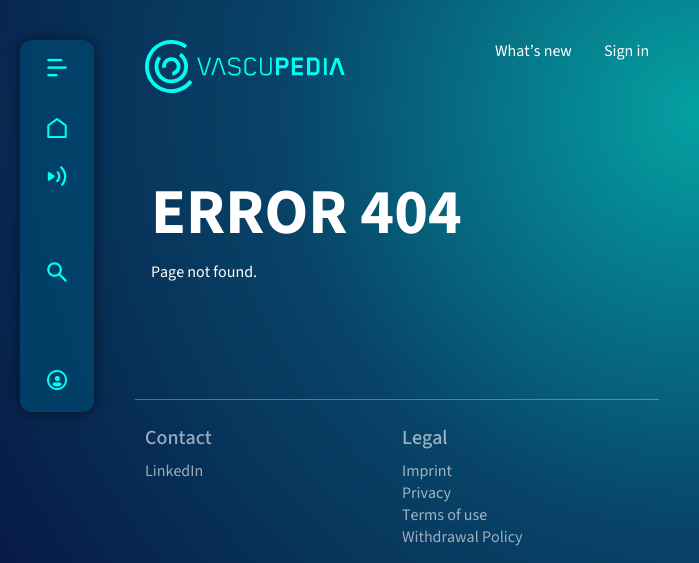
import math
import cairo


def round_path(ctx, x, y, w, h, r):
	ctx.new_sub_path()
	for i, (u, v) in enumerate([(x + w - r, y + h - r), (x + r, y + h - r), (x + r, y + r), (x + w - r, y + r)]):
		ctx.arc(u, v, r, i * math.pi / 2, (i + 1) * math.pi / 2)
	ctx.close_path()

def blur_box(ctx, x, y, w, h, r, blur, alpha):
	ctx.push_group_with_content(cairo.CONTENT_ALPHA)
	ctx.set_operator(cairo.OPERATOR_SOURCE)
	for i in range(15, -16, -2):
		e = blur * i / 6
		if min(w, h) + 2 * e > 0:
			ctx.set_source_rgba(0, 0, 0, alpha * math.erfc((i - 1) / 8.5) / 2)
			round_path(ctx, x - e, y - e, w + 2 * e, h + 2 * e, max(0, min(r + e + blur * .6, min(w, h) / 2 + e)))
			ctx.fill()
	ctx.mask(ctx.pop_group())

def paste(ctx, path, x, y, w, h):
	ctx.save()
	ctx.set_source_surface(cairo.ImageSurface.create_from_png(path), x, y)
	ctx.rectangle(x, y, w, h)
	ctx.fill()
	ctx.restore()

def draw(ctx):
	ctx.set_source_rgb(1, 1, 1)
	ctx.paint()
	gradient = cairo.RadialGradient(699, 113, 0, 699, 113, 832)
	gradient.add_color_stop_rgba(0, 0.016, 0.631, 0.639, 1)
	gradient.add_color_stop_rgba(0.5, 0.031, 0.267, 0.408, 1)
	gradient.add_color_stop_rgba(1, 0.027, 0.102, 0.275, 1)
	ctx.set_source(gradient)
	ctx.rectangle(0, 0, 699, 563)
	ctx.fill()
	ctx.save()
	ctx.set_fill_rule(cairo.FILL_RULE_EVEN_ODD)
	ctx.new_path()
	ctx.move_to(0, 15)
	ctx.line_to(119, 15)
	ctx.line_to(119, 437)
	ctx.line_to(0, 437)
	ctx.close_path()
	ctx.move_to(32, 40)
	ctx.line_to(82, 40)
	ctx.curve_to(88.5, 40, 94, 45.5, 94, 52)
	ctx.line_to(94, 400)
	ctx.curve_to(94, 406.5, 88.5, 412, 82, 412)
	ctx.line_to(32, 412)
	ctx.curve_to(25.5, 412, 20, 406.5, 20, 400)
	ctx.line_to(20, 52)
	ctx.curve_to(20, 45.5, 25.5, 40, 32, 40)
	ctx.close_path()
	ctx.clip()
	ctx.set_source_rgb(0, 0, 0)
	blur_box(ctx, 20, 40, 74, 372, 12, 8, 0.5)
	ctx.restore()
	ctx.set_source_rgba(0, 0.271, 0.424, 0.8)
	round_path(ctx, 20, 40, 74, 372, 12)
	ctx.fill()
	paste(ctx, 'media/1.png', 47, 58, 20, 19)
	paste(ctx, 'media/2.png', 47, 118, 20, 20)
	paste(ctx, 'media/3.png', 47, 166, 20, 20)
	paste(ctx, 'media/4.png', 47, 262, 20, 20)
	paste(ctx, 'media/5.png', 47, 370, 20, 20)
	gradient = cairo.RadialGradient(699, 113, 0, 699, 113, 832)
	gradient.add_color_stop_rgba(0, 0.31, 0.741, 0.749, 1)
	gradient.add_color_stop_rgba(0.5, 0.322, 0.486, 0.584, 1)
	gradient.add_color_stop_rgba(1, 0.318, 0.373, 0.494, 1)
	ctx.set_source(gradient)
	ctx.rectangle(135, 399, 524, 1)
	ctx.fill()
	paste(ctx, 'media/6.png', 145, 40, 200, 53)
	ctx.select_font_face('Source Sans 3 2 ExtraLight')
	ctx.set_font_size(16)
	ctx.set_source_rgb(1, 1, 1)
	ctx.move_to(495, 56)
	ctx.show_text('What’s new')
	ctx.move_to(604, 56)
	ctx.show_text('Sign in')
	ctx.select_font_face('Source Sans 3 ExtraLight')
	ctx.set_font_size(64)
	ctx.move_to(151, 233)
	ctx.show_text('ERROR 404')
	ctx.select_font_face('Source Sans 3 2 ExtraLight')
	ctx.set_font_size(16)
	ctx.move_to(151, 277)
	ctx.show_text('Page not found.')
	ctx.select_font_face('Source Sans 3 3 ExtraLight')
	ctx.set_font_size(20)
	ctx.set_source_rgb(0.612, 0.675, 0.737)
	ctx.move_to(145, 444)
	ctx.show_text('Contact')
	ctx.select_font_face('Source Sans 3 2 ExtraLight')
	ctx.set_font_size(16)
	ctx.move_to(145, 476)
	ctx.show_text('LinkedIn')
	ctx.select_font_face('Source Sans 3 3 ExtraLight')
	ctx.set_font_size(20)
	ctx.set_source_rgb(0.612, 0.706, 0.761)
	ctx.move_to(402, 444)
	ctx.show_text('Legal')
	ctx.select_font_face('Source Sans 3 2 ExtraLight')
	ctx.set_font_size(16)
	for x, y, s in [
		(402, 476, 'Imprint'),
		(402, 498, 'Privacy'),
		(402, 520, 'Terms of use'),
	]:
		ctx.move_to(x, y)
		ctx.show_text(s)
	ctx.set_source_rgb(0.612, 0.675, 0.737)
	ctx.move_to(402, 542)
	ctx.show_text('Withdrawal Policy')


surface = cairo.ImageSurface(cairo.FORMAT_RGB24, 699, 563)
ctx = cairo.Context(surface)
options = cairo.FontOptions()
options.set_hint_metrics(cairo.HINT_METRICS_OFF)
options.set_hint_style(cairo.HINT_STYLE_NONE)
ctx.set_font_options(options)
ctx.set_miter_limit(4)
draw(ctx)
surface.write_to_png('image.png')
